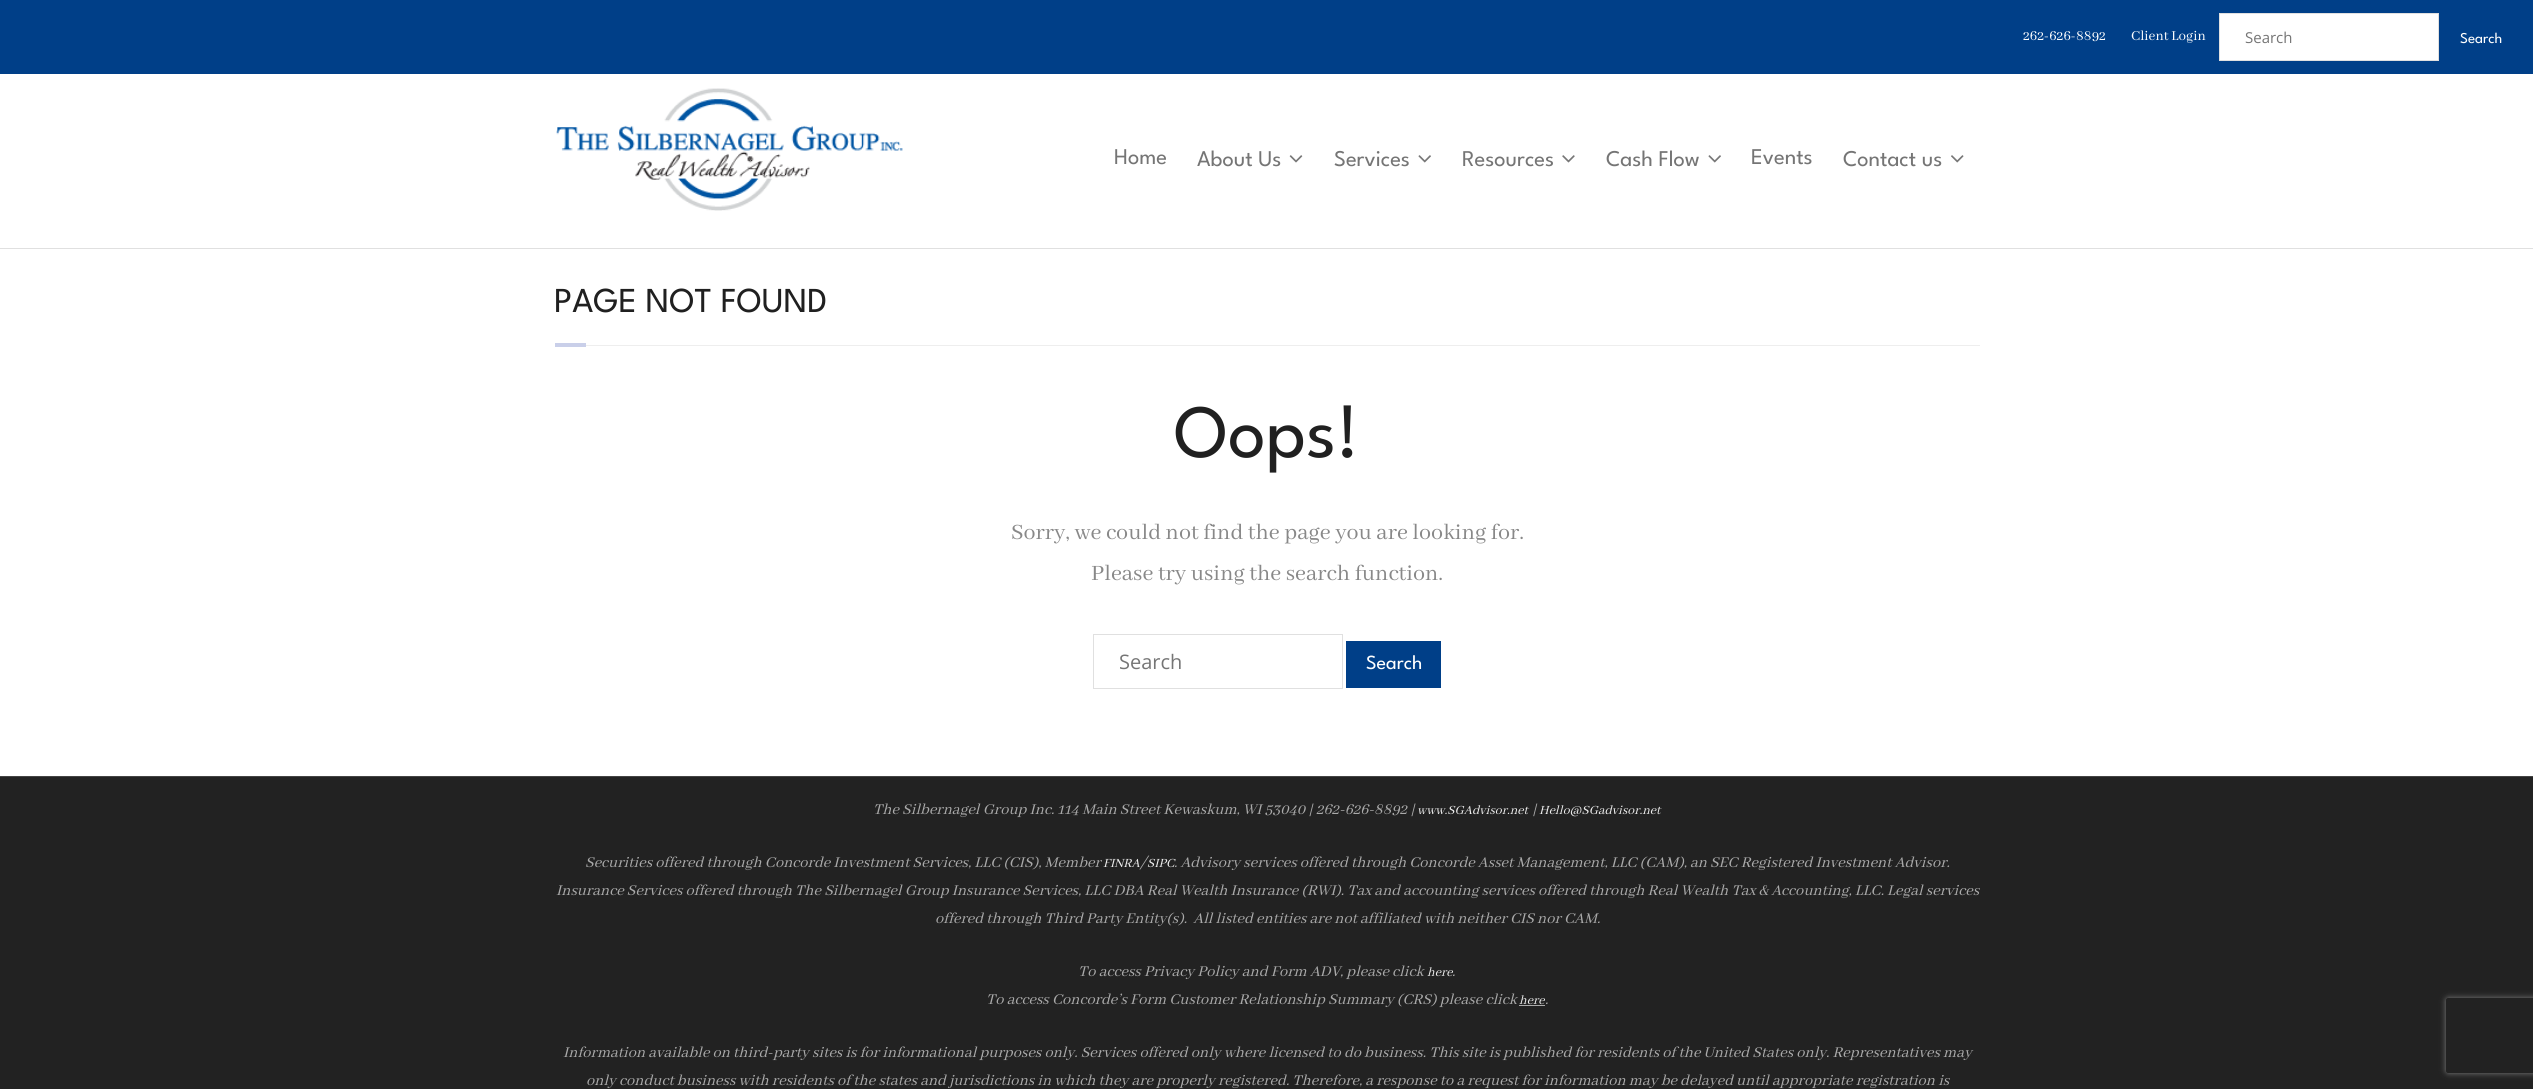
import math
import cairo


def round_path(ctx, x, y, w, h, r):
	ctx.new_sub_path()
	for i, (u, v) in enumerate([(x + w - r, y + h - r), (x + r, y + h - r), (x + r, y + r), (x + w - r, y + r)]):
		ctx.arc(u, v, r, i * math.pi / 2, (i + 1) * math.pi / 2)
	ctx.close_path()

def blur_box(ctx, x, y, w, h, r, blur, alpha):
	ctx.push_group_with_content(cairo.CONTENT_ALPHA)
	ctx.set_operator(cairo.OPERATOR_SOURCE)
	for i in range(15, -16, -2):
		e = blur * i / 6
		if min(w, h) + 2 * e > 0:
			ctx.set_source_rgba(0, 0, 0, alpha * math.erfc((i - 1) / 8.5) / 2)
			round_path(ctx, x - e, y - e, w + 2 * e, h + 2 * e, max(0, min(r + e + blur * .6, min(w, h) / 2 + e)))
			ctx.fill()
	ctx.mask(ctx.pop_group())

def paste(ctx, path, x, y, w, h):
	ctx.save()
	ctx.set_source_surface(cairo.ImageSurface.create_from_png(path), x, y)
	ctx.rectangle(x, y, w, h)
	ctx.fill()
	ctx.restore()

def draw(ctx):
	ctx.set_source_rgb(1, 1, 1)
	ctx.paint()
	ctx.set_source_rgb(0, 0.247, 0.533)
	ctx.rectangle(0, 0, 2533, 74)
	ctx.fill()
	ctx.select_font_face('Abhaya Libre')
	ctx.set_font_size(15)
	ctx.set_source_rgb(1, 1, 1)
	ctx.move_to(2023, 40)
	ctx.show_text('262-626-8892')
	ctx.move_to(2131, 40)
	ctx.show_text('Client Login')
	ctx.rectangle(2219.5, 13.5, 219, 47)
	ctx.fill_preserve()
	ctx.set_source_rgb(0.878, 0.878, 0.878)
	ctx.set_line_width(1)
	ctx.stroke()
	ctx.select_font_face('Open Sans')
	ctx.set_source_rgb(0.459, 0.459, 0.459)
	ctx.move_to(2245, 43)
	ctx.show_text('Search')
	ctx.select_font_face('League Spartan')
	ctx.set_source_rgb(1, 1, 1)
	ctx.move_to(2460, 43)
	ctx.show_text('Search')
	ctx.set_source_rgb(0.878, 0.878, 0.878)
	ctx.rectangle(0, 248, 2533, 1)
	ctx.fill()
	paste(ctx, 'media/1.png', 556, 88, 347, 123)
	ctx.set_font_size(22.5)
	ctx.set_source_rgb(0.459, 0.459, 0.459)
	ctx.move_to(1114, 164)
	ctx.show_text('Home')
	ctx.move_to(1197, 166)
	ctx.show_text('About Us')
	paste(ctx, 'media/2.png', 1289, 155, 14, 8)
	ctx.move_to(1334, 166)
	ctx.show_text('Services')
	paste(ctx, 'media/3.png', 1418, 155, 13, 8)
	ctx.move_to(1462, 166)
	ctx.show_text('Resources')
	paste(ctx, 'media/4.png', 1562, 155, 13, 8)
	ctx.move_to(1606, 166)
	ctx.show_text('Cash Flow')
	paste(ctx, 'media/3.png', 1708, 155, 13, 8)
	ctx.move_to(1751, 164)
	ctx.show_text('Events')
	ctx.move_to(1843, 166)
	ctx.show_text('Contact us')
	paste(ctx, 'media/5.png', 1951, 155, 13, 8)
	ctx.set_font_size(35)
	ctx.set_source_rgb(0.125, 0.125, 0.125)
	ctx.move_to(554, 312)
	ctx.show_text('PAGE NOT FOUND')
	ctx.set_source_rgb(0.788, 0.812, 0.914)
	ctx.rectangle(555, 343, 31, 4)
	ctx.fill()
	ctx.set_source_rgb(0.933, 0.933, 0.933)
	ctx.rectangle(586, 345, 1394, 1)
	ctx.fill()
	ctx.set_font_size(75)
	ctx.set_source_rgb(0.125, 0.125, 0.125)
	ctx.move_to(1174, 457)
	ctx.show_text('Oops!')
	ctx.select_font_face('Abhaya Libre')
	ctx.set_font_size(24)
	ctx.set_source_rgb(0.533, 0.533, 0.533)
	ctx.move_to(1011, 539)
	ctx.show_text('Sorry, we could not find the page you are looking for.')
	ctx.move_to(1091, 580)
	ctx.show_text('Please try using the search function.')
	ctx.rectangle(1093.5, 634.5, 249, 54)
	ctx.set_source_rgb(0.878, 0.878, 0.878)
	ctx.stroke()
	ctx.select_font_face('Open Sans')
	ctx.set_font_size(20)
	ctx.set_source_rgb(0.459, 0.459, 0.459)
	ctx.move_to(1119, 669)
	ctx.show_text('Search')
	ctx.set_source_rgb(0, 0.247, 0.533)
	ctx.rectangle(1346, 641, 95, 47)
	ctx.fill()
	ctx.select_font_face('League Spartan')
	ctx.set_source_rgb(1, 1, 1)
	ctx.move_to(1366, 669)
	ctx.show_text('Search')
	ctx.set_source_rgb(0.133, 0.133, 0.133)
	ctx.rectangle(0, 777, 2533, 312)
	ctx.fill()
	ctx.set_source_rgb(0.267, 0.267, 0.267)
	ctx.rectangle(0, 776, 2533, 1)
	ctx.fill()
	ctx.select_font_face('Abhaya Libre', cairo.FONT_SLANT_ITALIC)
	ctx.set_font_size(16.5)
	ctx.set_source_rgb(0.667, 0.667, 0.667)
	ctx.move_to(873, 814)
	ctx.show_text('The Silbernagel Group Inc. 114 Main Street Kewaskum, WI 53040 | 262-626-8892 |')
	ctx.set_font_size(13.75)
	ctx.set_source_rgb(0.933, 0.933, 0.933)
	ctx.move_to(1417, 814)
	ctx.show_text('www.SGAdvisor.net')
	ctx.set_font_size(16.5)
	ctx.set_source_rgb(0.667, 0.667, 0.667)
	ctx.move_to(1532, 814)
	ctx.show_text('|')
	ctx.set_font_size(13.75)
	ctx.set_source_rgb(0.933, 0.933, 0.933)
	ctx.move_to(1539, 814)
	ctx.show_text('Hello@SGadvisor.net')
	ctx.set_font_size(16.5)
	ctx.set_source_rgb(0.667, 0.667, 0.667)
	ctx.move_to(585, 867)
	ctx.show_text('Securities offered through Concorde Investment Services, LLC (CIS), Member')
	ctx.set_font_size(13.75)
	ctx.set_source_rgb(0.933, 0.933, 0.933)
	ctx.move_to(1103, 867)
	ctx.show_text('FINRA')
	ctx.set_font_size(16.5)
	ctx.set_source_rgb(0.667, 0.667, 0.667)
	ctx.move_to(1140, 867)
	ctx.show_text('/')
	ctx.set_font_size(13.75)
	ctx.set_source_rgb(0.933, 0.933, 0.933)
	ctx.move_to(1147, 867)
	ctx.show_text('SIPC')
	ctx.set_font_size(16.5)
	ctx.set_source_rgb(0.667, 0.667, 0.667)
	for x, y, s in [
		(1174, 867, '. Advisory services offered through Concorde Asset Management, LLC (CAM), an SEC Registered Investment Advisor.'),
		(556, 895, 'Insurance Services offered through The Silbernagel Group Insurance Services, LLC DBA Real Wealth Insurance (RWI). Tax and accounting services offered through Real Wealth Tax & Accounting, LLC. Legal services'),
		(935, 923, 'offered through Third Party Entity(s).  All listed entities are not affiliated with neither CIS nor CAM.'),
		(1078, 976, 'To access Privacy Policy and Form ADV, please click'),
	]:
		ctx.move_to(x, y)
		ctx.show_text(s)
	ctx.set_font_size(13.75)
	ctx.set_source_rgb(0.933, 0.933, 0.933)
	ctx.move_to(1427, 976)
	ctx.show_text('here')
	ctx.set_font_size(16.5)
	ctx.set_source_rgb(0.667, 0.667, 0.667)
	ctx.move_to(1452, 976)
	ctx.show_text('.')
	ctx.move_to(986, 1004)
	ctx.show_text('To access Concorde’s Form Customer Relationship Summary (CRS) please click')
	ctx.set_font_size(13.75)
	ctx.set_source_rgb(0.933, 0.933, 0.933)
	ctx.move_to(1519, 1004)
	ctx.show_text('here')
	ctx.set_font_size(16.5)
	ctx.set_source_rgb(0.667, 0.667, 0.667)
	ctx.move_to(1545, 1004)
	ctx.show_text('.')
	ctx.rectangle(1519, 1005, 26, 1)
	ctx.fill()
	ctx.move_to(563, 1057)
	ctx.show_text('Information available on third-party sites is for informational purposes only. Services offered only where licensed to do business. This site is published for residents of the United States only. Representatives may')
	ctx.move_to(586, 1085)
	ctx.show_text('only conduct business with residents of the states and jurisdictions in which they are properly registered. Therefore, a response to a request for information may be delayed until appropriate registration is')
	ctx.save()
	ctx.set_fill_rule(cairo.FILL_RULE_EVEN_ODD)
	ctx.new_path()
	ctx.move_to(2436, 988)
	ctx.line_to(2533, 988)
	ctx.line_to(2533, 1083)
	ctx.line_to(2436, 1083)
	ctx.close_path()
	ctx.move_to(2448.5, 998)
	ctx.line_to(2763.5, 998)
	ctx.curve_to(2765, 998, 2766, 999, 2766, 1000.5)
	ctx.line_to(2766, 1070.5)
	ctx.curve_to(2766, 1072, 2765, 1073, 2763.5, 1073)
	ctx.line_to(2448.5, 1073)
	ctx.curve_to(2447, 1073, 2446, 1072, 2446, 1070.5)
	ctx.line_to(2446, 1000.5)
	ctx.curve_to(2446, 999, 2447, 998, 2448.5, 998)
	ctx.close_path()
	ctx.clip()
	ctx.set_source_rgb(0.502, 0.502, 0.502)
	blur_box(ctx, 2446, 998, 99, 75, 2.5, 3, 1)
	ctx.restore()


surface = cairo.ImageSurface(cairo.FORMAT_RGB24, 2533, 1089)
ctx = cairo.Context(surface)
options = cairo.FontOptions()
options.set_hint_metrics(cairo.HINT_METRICS_OFF)
options.set_hint_style(cairo.HINT_STYLE_NONE)
ctx.set_font_options(options)
ctx.set_miter_limit(4)
draw(ctx)
surface.write_to_png('image.png')
